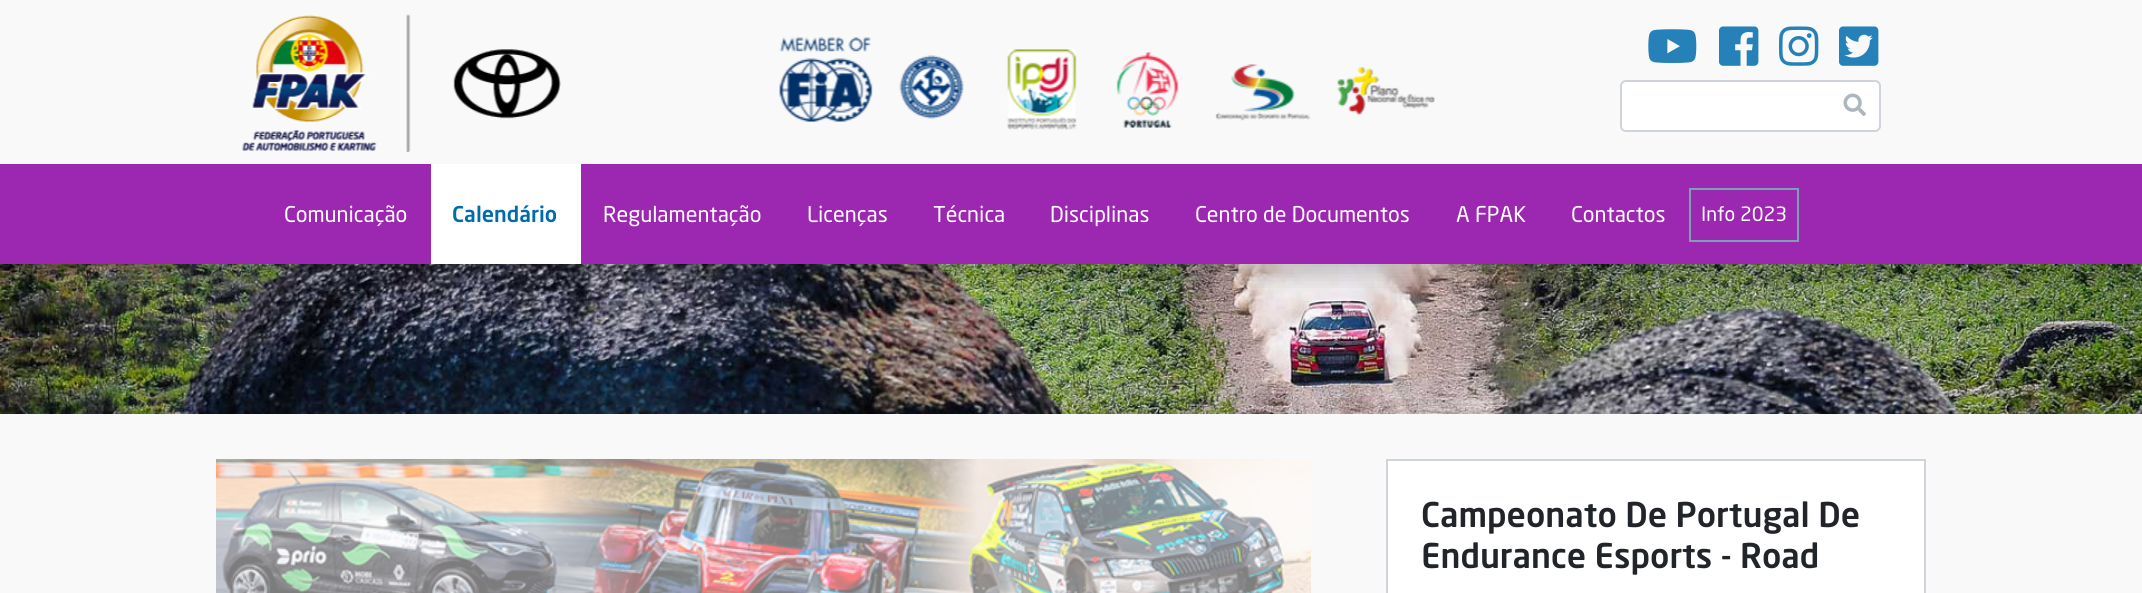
import math
import cairo


def round_path(ctx, x, y, w, h, r):
	ctx.new_sub_path()
	for i, (u, v) in enumerate([(x + w - r, y + h - r), (x + r, y + h - r), (x + r, y + r), (x + w - r, y + r)]):
		ctx.arc(u, v, r, i * math.pi / 2, (i + 1) * math.pi / 2)
	ctx.close_path()

def blur_box(ctx, x, y, w, h, r, blur, alpha):
	ctx.push_group_with_content(cairo.CONTENT_ALPHA)
	ctx.set_operator(cairo.OPERATOR_SOURCE)
	for i in range(15, -16, -2):
		e = blur * i / 6
		if min(w, h) + 2 * e > 0:
			ctx.set_source_rgba(0, 0, 0, alpha * math.erfc((i - 1) / 8.5) / 2)
			round_path(ctx, x - e, y - e, w + 2 * e, h + 2 * e, max(0, min(r + e + blur * .6, min(w, h) / 2 + e)))
			ctx.fill()
	ctx.mask(ctx.pop_group())

def paste(ctx, path, x, y, w, h):
	ctx.save()
	ctx.set_source_surface(cairo.ImageSurface.create_from_png(path), x, y)
	ctx.rectangle(x, y, w, h)
	ctx.fill()
	ctx.restore()

def draw(ctx):
	ctx.set_source_rgb(0.973, 0.976, 0.98)
	ctx.paint()
	paste(ctx, 'media/8.png', 0, 264, 2142, 150)
	ctx.save()
	ctx.rectangle(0, 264, 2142, 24)
	ctx.clip()
	ctx.set_source_rgb(0, 0, 0)
	blur_box(ctx, 0, 12, 2142, 264, 0, 11, 0.15)
	ctx.restore()
	paste(ctx, 'media/1.png', 242, 14, 319, 138)
	paste(ctx, 'media/2.png', 779, 37, 656, 93)
	paste(ctx, 'media/3.png', 1648, 29, 49, 34)
	paste(ctx, 'media/4.png', 1719, 26, 40, 40)
	paste(ctx, 'media/5.png', 1779, 26, 40, 40)
	paste(ctx, 'media/6.png', 1839, 26, 40, 40)
	ctx.set_source_rgb(1, 1, 1)
	round_path(ctx, 1621, 81, 259, 50, 5)
	ctx.fill_preserve()
	ctx.set_source_rgb(0.808, 0.831, 0.855)
	ctx.stroke()
	paste(ctx, 'media/7.png', 1843, 93, 23, 23)
	ctx.set_source_rgb(0.612, 0.153, 0.69)
	ctx.rectangle(0, 164, 2142, 100)
	ctx.fill()
	ctx.select_font_face('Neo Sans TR')
	ctx.set_font_size(21.5)
	ctx.set_source_rgb(1, 1, 1)
	ctx.move_to(284, 222)
	ctx.show_text('Comunicação')
	ctx.rectangle(431, 164, 150, 100)
	ctx.fill()
	ctx.select_font_face('Neo Sans TR Medium')
	ctx.set_source_rgb(0, 0.424, 0.675)
	ctx.move_to(452, 222)
	ctx.show_text('Calendário')
	ctx.select_font_face('Neo Sans TR')
	ctx.set_source_rgb(1, 1, 1)
	for x, y, s in [
		(603, 222, 'Regulamentação'),
		(807, 222, 'Licenças'),
		(933, 222, 'Técnica'),
		(1050, 222, 'Disciplinas'),
		(1195, 222, 'Centro de Documentos'),
		(1456, 222, 'A FPAK'),
		(1571, 222, 'Contactos'),
	]:
		ctx.move_to(x, y)
		ctx.show_text(s)
	ctx.rectangle(1690, 189, 108, 52)
	ctx.set_source_rgb(0.486, 0.627, 0.71)
	ctx.stroke()
	ctx.set_font_size(19.5)
	ctx.set_source_rgb(1, 1, 1)
	ctx.move_to(1701, 221)
	ctx.show_text('Info 2023')
	paste(ctx, 'media/9.png', 216, 459, 1095, 134)
	ctx.rectangle(1387, 460, 538, 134)
	ctx.fill_preserve()
	ctx.set_source_rgb(0.808, 0.831, 0.855)
	ctx.stroke()
	ctx.select_font_face('Neo Sans TR Medium')
	ctx.set_font_size(33.75)
	ctx.set_source_rgb(0.129, 0.145, 0.161)
	ctx.move_to(1421, 527)
	ctx.show_text('Campeonato De Portugal De')
	ctx.move_to(1421, 568)
	ctx.show_text('Endurance Esports - Road')


surface = cairo.ImageSurface(cairo.FORMAT_RGB24, 2142, 593)
ctx = cairo.Context(surface)
options = cairo.FontOptions()
options.set_hint_metrics(cairo.HINT_METRICS_OFF)
options.set_hint_style(cairo.HINT_STYLE_NONE)
ctx.set_font_options(options)
ctx.set_miter_limit(4)
draw(ctx)
surface.write_to_png('image.png')
